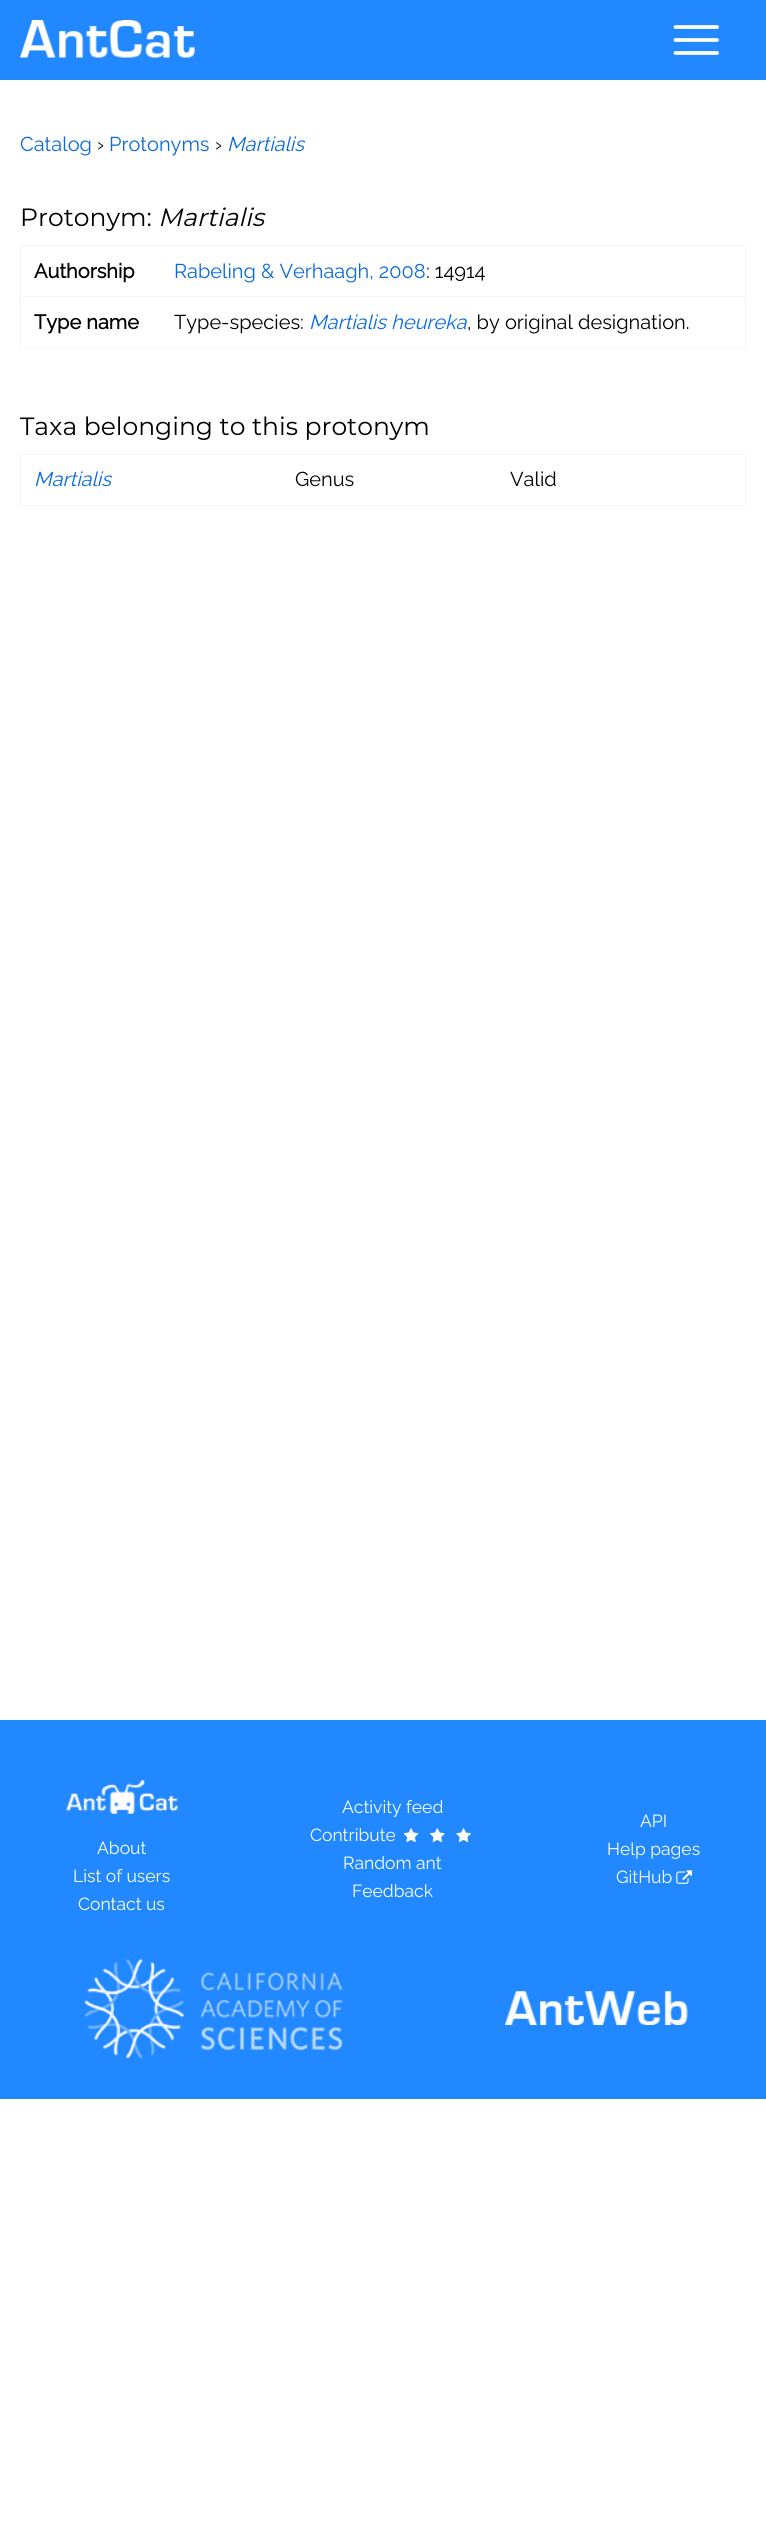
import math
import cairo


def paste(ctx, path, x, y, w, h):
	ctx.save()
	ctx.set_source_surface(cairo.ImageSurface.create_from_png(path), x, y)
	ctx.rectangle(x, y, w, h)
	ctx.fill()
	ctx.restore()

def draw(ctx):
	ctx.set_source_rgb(1, 1, 1)
	ctx.paint()
	ctx.set_source_rgb(0.129, 0.533, 1)
	ctx.rectangle(0, 0, 766, 80)
	ctx.fill()
	paste(ctx, 'media/1.png', 20, 20, 175, 38)
	ctx.new_path()
	ctx.move_to(675.5, 27)
	ctx.line_to(717, 27)
	ctx.move_to(675.5, 40)
	ctx.line_to(717, 40)
	ctx.move_to(675.5, 53)
	ctx.line_to(717, 53)
	ctx.set_source_rgb(1, 1, 1)
	ctx.set_line_width(3.8)
	ctx.set_line_cap(cairo.LINE_CAP_ROUND)
	ctx.set_line_join(cairo.LINE_JOIN_ROUND)
	ctx.stroke()
	ctx.select_font_face('Raleway Thin')
	ctx.set_font_size(20)
	ctx.set_source_rgb(0.035, 0.416, 0.863)
	ctx.move_to(20, 151)
	ctx.show_text('Catalog')
	ctx.set_source_rgb(0, 0, 0)
	ctx.move_to(97, 151)
	ctx.show_text('›')
	ctx.set_source_rgb(0.035, 0.416, 0.863)
	ctx.move_to(109, 151)
	ctx.show_text('Protonyms')
	ctx.set_source_rgb(0, 0, 0)
	ctx.move_to(215, 151)
	ctx.show_text('›')
	ctx.select_font_face('Raleway Thin', cairo.FONT_SLANT_ITALIC)
	ctx.set_source_rgb(0.035, 0.416, 0.863)
	ctx.move_to(227, 151)
	ctx.show_text('Martialis')
	ctx.select_font_face('Montserrat Thin')
	ctx.set_font_size(25)
	ctx.set_source_rgb(0, 0, 0)
	ctx.move_to(20, 226)
	ctx.show_text('Protonym:')
	ctx.select_font_face('Montserrat Thin', cairo.FONT_SLANT_ITALIC)
	ctx.move_to(158, 226)
	ctx.show_text('Martialis')
	ctx.set_source_rgb(0.953, 0.957, 0.965)
	ctx.rectangle(20, 245, 726, 1)
	ctx.rectangle(745, 245, 1, 104)
	ctx.rectangle(20, 348, 726, 1)
	ctx.rectangle(20, 245, 1, 104)
	ctx.rectangle(20, 296, 726, 1)
	ctx.fill()
	ctx.select_font_face('Raleway', cairo.FONT_SLANT_NORMAL, cairo.FONT_WEIGHT_BOLD)
	ctx.set_font_size(20)
	ctx.set_source_rgb(0, 0, 0)
	ctx.move_to(34, 278)
	ctx.show_text('Authorship')
	ctx.select_font_face('Raleway Thin')
	ctx.set_source_rgb(0.035, 0.416, 0.863)
	ctx.move_to(174, 278)
	ctx.show_text('Rabeling & Verhaagh, 2008')
	ctx.set_source_rgb(0, 0, 0)
	ctx.move_to(426, 278)
	ctx.show_text(': 14914')
	ctx.select_font_face('Raleway', cairo.FONT_SLANT_NORMAL, cairo.FONT_WEIGHT_BOLD)
	ctx.move_to(34, 329)
	ctx.show_text('Type name')
	ctx.select_font_face('Raleway Thin')
	ctx.move_to(174, 329)
	ctx.show_text('Type-species:')
	ctx.select_font_face('Raleway Thin', cairo.FONT_SLANT_ITALIC)
	ctx.set_source_rgb(0.035, 0.416, 0.863)
	ctx.move_to(309, 329)
	ctx.show_text('Martialis heureka')
	ctx.select_font_face('Raleway Thin')
	ctx.set_source_rgb(0, 0, 0)
	ctx.move_to(467, 329)
	ctx.show_text(', by original designation.')
	ctx.select_font_face('Montserrat Thin')
	ctx.set_font_size(25)
	ctx.move_to(20, 435)
	ctx.show_text('Taxa belonging to this protonym')
	ctx.set_source_rgb(0.953, 0.957, 0.965)
	ctx.rectangle(20, 454, 726, 1)
	ctx.rectangle(745, 454, 1, 52)
	ctx.rectangle(20, 505, 726, 1)
	ctx.rectangle(20, 454, 1, 52)
	ctx.fill()
	ctx.select_font_face('Raleway Thin', cairo.FONT_SLANT_ITALIC)
	ctx.set_font_size(20)
	ctx.set_source_rgb(0.035, 0.416, 0.863)
	ctx.move_to(34, 486)
	ctx.show_text('Martialis')
	ctx.select_font_face('Raleway Thin')
	ctx.set_source_rgb(0, 0, 0)
	ctx.move_to(295, 486)
	ctx.show_text('Genus')
	ctx.move_to(510, 486)
	ctx.show_text('Valid')
	ctx.set_source_rgb(0.129, 0.533, 1)
	ctx.rectangle(0, 1720, 766, 379)
	ctx.fill()
	paste(ctx, 'media/2.png', 66, 1780, 112, 34)
	ctx.set_font_size(17.5)
	ctx.set_source_rgb(1, 1, 1)
	for x, y, s in [
		(97, 1854, 'About'),
		(73, 1882, 'List of users'),
		(78, 1910, 'Contact us'),
		(342, 1813, 'Activity feed'),
		(310, 1841, 'Contribute'),
	]:
		ctx.move_to(x, y)
		ctx.show_text(s)
	paste(ctx, 'media/3.png', 403, 1828, 16, 15)
	paste(ctx, 'media/4.png', 430, 1828, 15, 15)
	paste(ctx, 'media/5.png', 456, 1828, 15, 15)
	for x, y, s in [
		(343, 1869, 'Random ant'),
		(352, 1897, 'Feedback'),
		(640, 1827, 'API'),
		(607, 1855, 'Help pages'),
		(616, 1883, 'GitHub'),
	]:
		ctx.move_to(x, y)
		ctx.show_text(s)
	paste(ctx, 'media/6.png', 676, 1870, 16, 14)
	paste(ctx, 'media/7.png', 84, 1958, 259, 101)
	paste(ctx, 'media/8.png', 505, 1991, 183, 34)


surface = cairo.ImageSurface(cairo.FORMAT_RGB24, 766, 2523)
ctx = cairo.Context(surface)
options = cairo.FontOptions()
options.set_hint_metrics(cairo.HINT_METRICS_OFF)
options.set_hint_style(cairo.HINT_STYLE_NONE)
ctx.set_font_options(options)
ctx.set_miter_limit(4)
draw(ctx)
surface.write_to_png('image.png')
